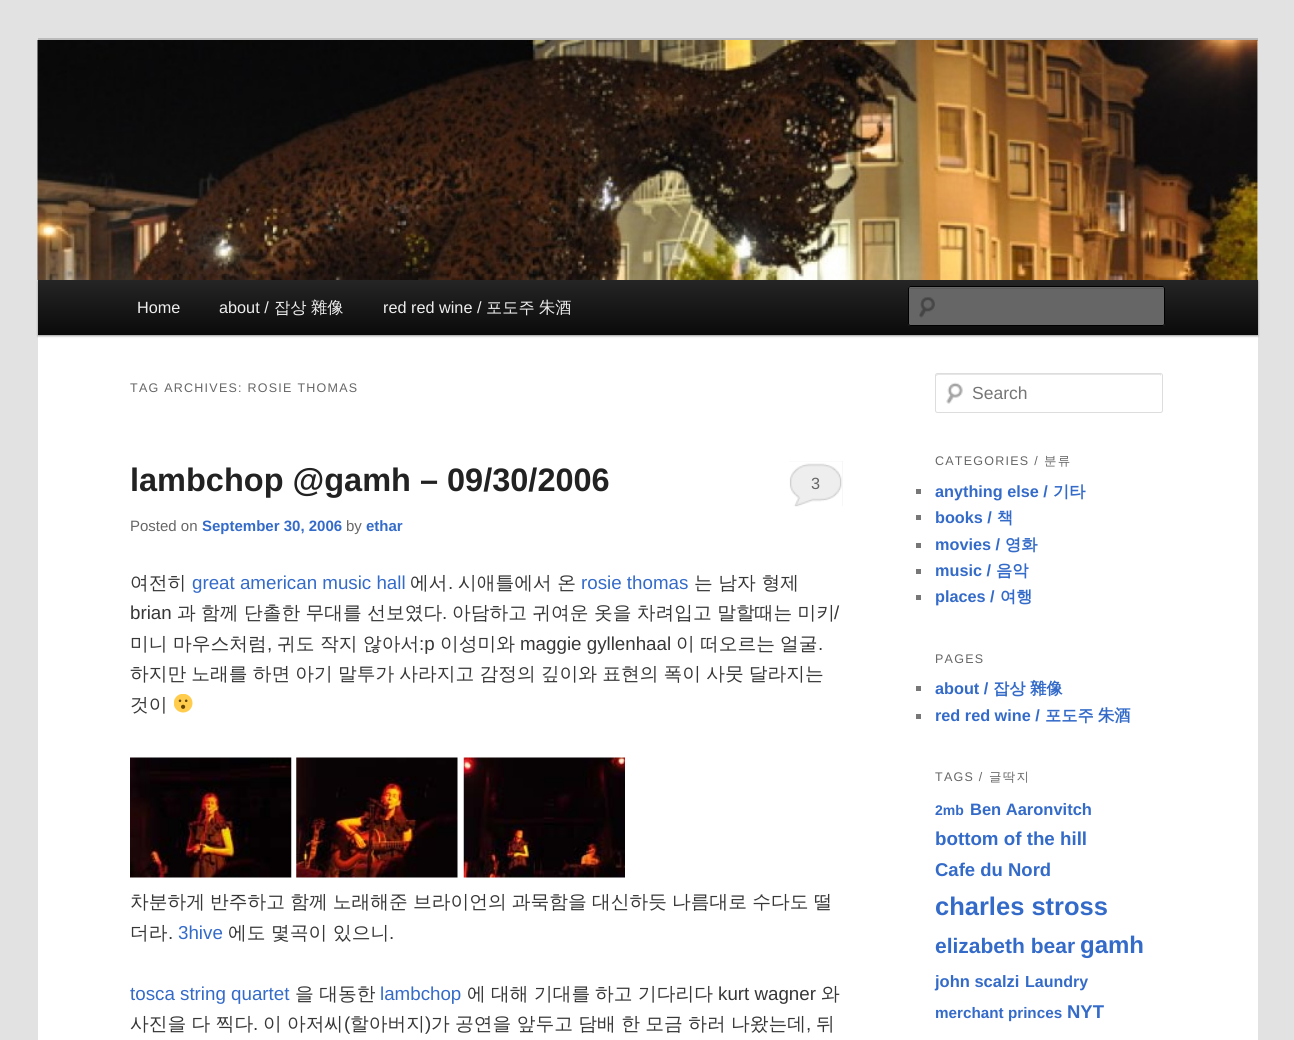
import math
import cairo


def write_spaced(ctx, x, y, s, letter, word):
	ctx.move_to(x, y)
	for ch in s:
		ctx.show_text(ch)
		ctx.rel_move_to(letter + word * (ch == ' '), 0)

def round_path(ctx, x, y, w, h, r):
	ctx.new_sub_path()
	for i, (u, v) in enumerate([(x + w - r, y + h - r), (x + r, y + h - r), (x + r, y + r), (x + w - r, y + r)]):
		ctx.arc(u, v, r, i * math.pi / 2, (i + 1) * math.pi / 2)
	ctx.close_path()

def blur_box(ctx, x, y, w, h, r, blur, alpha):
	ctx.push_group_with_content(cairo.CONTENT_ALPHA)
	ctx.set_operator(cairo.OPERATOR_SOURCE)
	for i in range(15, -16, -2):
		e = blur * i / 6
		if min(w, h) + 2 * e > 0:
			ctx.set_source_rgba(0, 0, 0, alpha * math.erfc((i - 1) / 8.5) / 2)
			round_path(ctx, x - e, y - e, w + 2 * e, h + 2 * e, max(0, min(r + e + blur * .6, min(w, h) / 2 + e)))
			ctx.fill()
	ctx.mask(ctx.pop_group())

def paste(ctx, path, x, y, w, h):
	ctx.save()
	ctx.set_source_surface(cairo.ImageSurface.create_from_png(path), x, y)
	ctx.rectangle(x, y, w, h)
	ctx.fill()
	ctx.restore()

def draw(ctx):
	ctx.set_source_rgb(0.886, 0.886, 0.886)
	ctx.paint()
	ctx.set_source_rgb(1, 1, 1)
	ctx.rectangle(38, 41, 1220, 999)
	ctx.fill()
	ctx.set_source_rgb(0.733, 0.733, 0.733)
	ctx.rectangle(38, 38, 1220, 3)
	ctx.fill()
	ctx.set_source_rgb(0, 0, 0)
	blur_box(ctx, 38, 281, 1220, 55, 0, 1, 0.4)
	paste(ctx, 'media/1.png', 37, 40, 1221, 240)
	gradient = cairo.LinearGradient(648, 280, 648, 335)
	gradient.add_color_stop_rgba(0, 0.145, 0.145, 0.145, 1)
	gradient.add_color_stop_rgba(1, 0.039, 0.039, 0.039, 1)
	ctx.set_source(gradient)
	ctx.rectangle(38, 280, 1220, 55)
	ctx.fill()
	ctx.select_font_face('Liberation Sans')
	ctx.set_font_size(16.25)
	ctx.set_source_rgb(0.933, 0.933, 0.933)
	ctx.move_to(137, 313)
	ctx.show_text('Home')
	ctx.move_to(219, 313)
	ctx.show_text('about /')
	ctx.select_font_face('WenQuanYi Zen Hei Medium')
	ctx.move_to(274, 313)
	ctx.show_text('잡상')
	ctx.move_to(311, 313)
	ctx.show_text('雜像')
	ctx.select_font_face('Liberation Sans')
	ctx.move_to(383, 313)
	ctx.show_text('red red wine /')
	ctx.select_font_face('WenQuanYi Zen Hei Medium')
	ctx.move_to(486, 313)
	ctx.show_text('포도주')
	ctx.move_to(539, 313)
	ctx.show_text('朱酒')
	ctx.set_source_rgb(0.4, 0.4, 0.4)
	round_path(ctx, 908, 286, 257, 40, 2.5)
	ctx.fill()
	paste(ctx, 'media/2.png', 919, 297, 16, 21)
	ctx.set_source_rgb(0.361, 0.361, 0.361)
	ctx.new_path()
	ctx.move_to(910, 289)
	ctx.line_to(1162, 289)
	ctx.curve_to(1163, 289, 1164, 289, 1164, 290)
	ctx.curve_to(1164, 289, 1164, 288, 1163, 288)
	ctx.line_to(909, 288)
	ctx.line_to(909, 290)
	ctx.curve_to(909, 289, 909, 289, 910, 289)
	ctx.close_path()
	ctx.fill()
	round_path(ctx, 908.5, 286.5, 256, 39, 2)
	ctx.set_source_rgb(0, 0, 0)
	ctx.set_line_width(1)
	ctx.stroke()
	ctx.select_font_face('Liberation Sans')
	ctx.set_font_size(12.5)
	ctx.set_source_rgb(0.4, 0.4, 0.4)
	write_spaced(ctx, 130, 392, 'TAG ARCHIVES: ROSIE THOMAS', 1.25, 0)
	ctx.select_font_face('Liberation Sans', cairo.FONT_SLANT_NORMAL, cairo.FONT_WEIGHT_BOLD)
	ctx.set_font_size(32.5)
	ctx.set_source_rgb(0.133, 0.133, 0.133)
	ctx.move_to(130, 491)
	ctx.show_text('lambchop @gamh – 09/30/2006')
	ctx.set_source_rgb(0.933, 0.933, 0.933)
	ctx.rectangle(789, 461, 54, 45)
	ctx.fill()
	paste(ctx, 'media/3.png', 789, 461, 54, 46)
	ctx.select_font_face('Liberation Sans')
	ctx.set_font_size(16.25)
	ctx.set_source_rgb(0.4, 0.4, 0.4)
	ctx.move_to(811, 489)
	ctx.show_text('3')
	ctx.set_font_size(15)
	ctx.move_to(130, 531)
	ctx.show_text('Posted on')
	ctx.select_font_face('Liberation Sans', cairo.FONT_SLANT_NORMAL, cairo.FONT_WEIGHT_BOLD)
	ctx.set_source_rgb(0.204, 0.42, 0.788)
	ctx.move_to(202, 531)
	ctx.show_text('September 30, 2006')
	ctx.select_font_face('Liberation Sans')
	ctx.set_source_rgb(0.4, 0.4, 0.4)
	ctx.move_to(346, 531)
	ctx.show_text('by')
	ctx.select_font_face('Liberation Sans', cairo.FONT_SLANT_NORMAL, cairo.FONT_WEIGHT_BOLD)
	ctx.set_source_rgb(0.204, 0.42, 0.788)
	ctx.move_to(366, 531)
	ctx.show_text('ethar')
	ctx.select_font_face('WenQuanYi Zen Hei Medium')
	ctx.set_font_size(18.75)
	ctx.set_source_rgb(0.216, 0.216, 0.216)
	ctx.move_to(130, 589)
	ctx.show_text('여전히')
	ctx.select_font_face('Liberation Sans')
	ctx.set_source_rgb(0.204, 0.42, 0.788)
	ctx.move_to(192, 589)
	ctx.show_text('great american music hall')
	ctx.select_font_face('WenQuanYi Zen Hei Medium')
	ctx.set_source_rgb(0.216, 0.216, 0.216)
	ctx.move_to(410, 589)
	ctx.show_text('에서')
	ctx.select_font_face('Liberation Sans')
	ctx.move_to(448, 589)
	ctx.show_text('.')
	ctx.select_font_face('WenQuanYi Zen Hei Medium')
	ctx.move_to(458, 589)
	ctx.show_text('시애틀에서 온')
	ctx.select_font_face('Liberation Sans')
	ctx.set_source_rgb(0.204, 0.42, 0.788)
	ctx.move_to(581, 589)
	ctx.show_text('rosie thomas')
	ctx.select_font_face('WenQuanYi Zen Hei Medium')
	ctx.set_source_rgb(0.216, 0.216, 0.216)
	ctx.move_to(694, 589)
	ctx.show_text('는 남자 형제')
	ctx.select_font_face('Liberation Sans')
	ctx.move_to(130, 619)
	ctx.show_text('brian')
	ctx.select_font_face('WenQuanYi Zen Hei Medium')
	write_spaced(ctx, 177, 619, '과 함께 단촐한 무대를 선보였다', 0, -0.25)
	ctx.select_font_face('Liberation Sans')
	ctx.move_to(442, 619)
	ctx.show_text('.')
	ctx.select_font_face('WenQuanYi Zen Hei Medium')
	write_spaced(ctx, 452, 619, '아담하고 귀여운 옷을 차려입고 말할때는 미키', 0, -0.25)
	ctx.select_font_face('Liberation Sans')
	ctx.move_to(834, 619)
	ctx.show_text('/')
	ctx.select_font_face('WenQuanYi Zen Hei Medium')
	ctx.move_to(130, 650)
	ctx.show_text('미니')
	ctx.move_to(173, 650)
	ctx.show_text('마우스처럼')
	ctx.select_font_face('Liberation Sans')
	ctx.move_to(267, 650)
	ctx.show_text(',')
	ctx.select_font_face('WenQuanYi Zen Hei Medium')
	for x, y, s in [
		(277, 650, '귀도'),
		(320, 650, '작지'),
		(363, 650, '않아서'),
	]:
		ctx.move_to(x, y)
		ctx.show_text(s)
	ctx.select_font_face('Liberation Sans')
	ctx.move_to(419, 650)
	ctx.show_text(':p')
	ctx.select_font_face('WenQuanYi Zen Hei Medium')
	ctx.move_to(440, 650)
	ctx.show_text('이성미와')
	ctx.select_font_face('Liberation Sans')
	ctx.move_to(520, 650)
	ctx.show_text('maggie gyllenhaal')
	ctx.select_font_face('WenQuanYi Zen Hei Medium')
	for x, y, s in [
		(676, 650, '이'),
		(700, 650, '떠오르는'),
		(780, 650, '얼굴'),
	]:
		ctx.move_to(x, y)
		ctx.show_text(s)
	ctx.select_font_face('Liberation Sans')
	ctx.move_to(818, 650)
	ctx.show_text('.')
	ctx.select_font_face('WenQuanYi Zen Hei Medium')
	write_spaced(ctx, 130, 680, '하지만 노래를 하면 아기 말투가 사라지고 감정의 깊이와 표현의 폭이 사뭇 달라지는', 0, -0.5)
	ctx.move_to(130, 711)
	ctx.show_text('것이')
	paste(ctx, 'media/4.png', 174, 694, 19, 19)
	paste(ctx, 'media/5.png', 130, 757, 162, 121)
	paste(ctx, 'media/6.png', 296, 757, 162, 121)
	paste(ctx, 'media/7.png', 463, 757, 162, 121)
	write_spaced(ctx, 130, 908, '차분하게 반주하고 함께 노래해준 브라이언의 과묵함을 대신하듯 나름대로 수다도 떨', 0, -0.5)
	ctx.move_to(130, 939)
	ctx.show_text('더라')
	ctx.select_font_face('Liberation Sans')
	ctx.move_to(168, 939)
	ctx.show_text('.')
	ctx.set_source_rgb(0.204, 0.42, 0.788)
	ctx.move_to(178, 939)
	ctx.show_text('3hive')
	ctx.select_font_face('WenQuanYi Zen Hei Medium')
	ctx.set_source_rgb(0.216, 0.216, 0.216)
	ctx.move_to(228, 939)
	ctx.show_text('에도 몇곡이 있으니')
	ctx.select_font_face('Liberation Sans')
	ctx.move_to(389, 939)
	ctx.show_text('.')
	ctx.set_source_rgb(0.204, 0.42, 0.788)
	ctx.move_to(130, 1000)
	ctx.show_text('tosca string quartet')
	ctx.select_font_face('WenQuanYi Zen Hei Medium')
	ctx.set_source_rgb(0.216, 0.216, 0.216)
	ctx.move_to(295, 1000)
	ctx.show_text('을 대동한')
	ctx.select_font_face('Liberation Sans')
	ctx.set_source_rgb(0.204, 0.42, 0.788)
	ctx.move_to(380, 1000)
	ctx.show_text('lambchop')
	ctx.select_font_face('WenQuanYi Zen Hei Medium')
	ctx.set_source_rgb(0.216, 0.216, 0.216)
	for x, y, s in [
		(467, 1000, '에'),
		(491, 1000, '대해'),
		(534, 1000, '기대를'),
		(595, 1000, '하고'),
		(638, 1000, '기다리다'),
	]:
		ctx.move_to(x, y)
		ctx.show_text(s)
	ctx.select_font_face('Liberation Sans')
	ctx.move_to(718, 1000)
	ctx.show_text('kurt wagner')
	ctx.select_font_face('WenQuanYi Zen Hei Medium')
	ctx.move_to(821, 1000)
	ctx.show_text('와')
	write_spaced(ctx, 130, 1030, '사진을 다 찍다', 0, -0.25)
	ctx.select_font_face('Liberation Sans')
	ctx.move_to(253, 1030)
	ctx.show_text('.')
	ctx.select_font_face('WenQuanYi Zen Hei Medium')
	write_spaced(ctx, 263, 1030, '이 아저씨', 0, -0.25)
	ctx.select_font_face('Liberation Sans')
	ctx.move_to(344, 1030)
	ctx.show_text('(')
	ctx.select_font_face('WenQuanYi Zen Hei Medium')
	ctx.move_to(350, 1030)
	ctx.show_text('할아버지')
	ctx.select_font_face('Liberation Sans')
	ctx.move_to(425, 1030)
	ctx.show_text(')')
	ctx.select_font_face('WenQuanYi Zen Hei Medium')
	write_spaced(ctx, 431, 1030, '가 공연을 앞두고 담배 한 모금 하러 나왔는데', 0, -0.25)
	ctx.select_font_face('Liberation Sans')
	ctx.move_to(806, 1030)
	ctx.show_text(',')
	ctx.select_font_face('WenQuanYi Zen Hei Medium')
	ctx.move_to(816, 1030)
	ctx.show_text('뒤')
	paste(ctx, 'media/8.png', 946, 382, 17, 22)
	ctx.set_source_rgb(0.902, 0.902, 0.902)
	ctx.new_path()
	ctx.move_to(938, 375)
	ctx.line_to(1160, 375)
	ctx.line_to(1161, 376)
	ctx.line_to(1161, 374)
	ctx.line_to(937, 374)
	ctx.curve_to(936, 374, 936, 375, 936, 376)
	ctx.close_path()
	ctx.fill()
	round_path(ctx, 935.5, 373.5, 227, 39, 2)
	ctx.set_source_rgb(0.867, 0.867, 0.867)
	ctx.stroke()
	ctx.select_font_face('Liberation Sans')
	ctx.set_font_size(17.5)
	ctx.set_source_rgb(0.459, 0.459, 0.459)
	ctx.move_to(972, 399)
	ctx.show_text('Search')
	ctx.set_font_size(12.5)
	ctx.set_source_rgb(0.4, 0.4, 0.4)
	write_spaced(ctx, 935, 465, 'CATEGORIES /', 1.25, 0)
	ctx.select_font_face('WenQuanYi Zen Hei Medium')
	write_spaced(ctx, 1044, 465, '분류', 1.25, 0)
	ctx.set_source_rgb(0.467, 0.467, 0.467)
	ctx.rectangle(916, 489, 5, 5)
	ctx.fill()
	ctx.select_font_face('Liberation Sans', cairo.FONT_SLANT_NORMAL, cairo.FONT_WEIGHT_BOLD)
	ctx.set_font_size(16.25)
	ctx.set_source_rgb(0.204, 0.42, 0.788)
	ctx.move_to(935, 497)
	ctx.show_text('anything else /')
	ctx.select_font_face('WenQuanYi Zen Hei', cairo.FONT_SLANT_NORMAL, cairo.FONT_WEIGHT_BOLD)
	ctx.move_to(1053, 497)
	ctx.show_text('기타')
	ctx.set_source_rgb(0.467, 0.467, 0.467)
	ctx.rectangle(916, 515, 5, 5)
	ctx.fill()
	ctx.select_font_face('Liberation Sans', cairo.FONT_SLANT_NORMAL, cairo.FONT_WEIGHT_BOLD)
	ctx.set_source_rgb(0.204, 0.42, 0.788)
	ctx.move_to(935, 523)
	ctx.show_text('books /')
	ctx.select_font_face('WenQuanYi Zen Hei', cairo.FONT_SLANT_NORMAL, cairo.FONT_WEIGHT_BOLD)
	ctx.move_to(997, 523)
	ctx.show_text('책')
	ctx.set_source_rgb(0.467, 0.467, 0.467)
	ctx.rectangle(916, 543, 5, 5)
	ctx.fill()
	ctx.select_font_face('Liberation Sans', cairo.FONT_SLANT_NORMAL, cairo.FONT_WEIGHT_BOLD)
	ctx.set_source_rgb(0.204, 0.42, 0.788)
	ctx.move_to(935, 550)
	ctx.show_text('movies /')
	ctx.select_font_face('WenQuanYi Zen Hei', cairo.FONT_SLANT_NORMAL, cairo.FONT_WEIGHT_BOLD)
	ctx.move_to(1005, 550)
	ctx.show_text('영화')
	ctx.set_source_rgb(0.467, 0.467, 0.467)
	ctx.rectangle(916, 569, 5, 5)
	ctx.fill()
	ctx.select_font_face('Liberation Sans', cairo.FONT_SLANT_NORMAL, cairo.FONT_WEIGHT_BOLD)
	ctx.set_source_rgb(0.204, 0.42, 0.788)
	ctx.move_to(935, 576)
	ctx.show_text('music /')
	ctx.select_font_face('WenQuanYi Zen Hei', cairo.FONT_SLANT_NORMAL, cairo.FONT_WEIGHT_BOLD)
	ctx.move_to(996, 576)
	ctx.show_text('음악')
	ctx.set_source_rgb(0.467, 0.467, 0.467)
	ctx.rectangle(916, 595, 5, 5)
	ctx.fill()
	ctx.select_font_face('Liberation Sans', cairo.FONT_SLANT_NORMAL, cairo.FONT_WEIGHT_BOLD)
	ctx.set_source_rgb(0.204, 0.42, 0.788)
	ctx.move_to(935, 602)
	ctx.show_text('places /')
	ctx.select_font_face('WenQuanYi Zen Hei', cairo.FONT_SLANT_NORMAL, cairo.FONT_WEIGHT_BOLD)
	ctx.move_to(1000, 602)
	ctx.show_text('여행')
	ctx.select_font_face('Liberation Sans')
	ctx.set_font_size(12.5)
	ctx.set_source_rgb(0.4, 0.4, 0.4)
	write_spaced(ctx, 935, 663, 'PAGES', 1.25, 0)
	ctx.set_source_rgb(0.467, 0.467, 0.467)
	ctx.rectangle(916, 686, 5, 5)
	ctx.fill()
	ctx.select_font_face('Liberation Sans', cairo.FONT_SLANT_NORMAL, cairo.FONT_WEIGHT_BOLD)
	ctx.set_font_size(16.25)
	ctx.set_source_rgb(0.204, 0.42, 0.788)
	ctx.move_to(935, 694)
	ctx.show_text('about /')
	ctx.select_font_face('WenQuanYi Zen Hei', cairo.FONT_SLANT_NORMAL, cairo.FONT_WEIGHT_BOLD)
	ctx.move_to(993, 694)
	ctx.show_text('잡상')
	ctx.move_to(1030, 694)
	ctx.show_text('雜像')
	ctx.set_source_rgb(0.467, 0.467, 0.467)
	ctx.rectangle(916, 714, 5, 5)
	ctx.fill()
	ctx.select_font_face('Liberation Sans', cairo.FONT_SLANT_NORMAL, cairo.FONT_WEIGHT_BOLD)
	ctx.set_source_rgb(0.204, 0.42, 0.788)
	ctx.move_to(935, 721)
	ctx.show_text('red red wine /')
	ctx.select_font_face('WenQuanYi Zen Hei', cairo.FONT_SLANT_NORMAL, cairo.FONT_WEIGHT_BOLD)
	ctx.move_to(1045, 721)
	ctx.show_text('포도주')
	ctx.move_to(1098, 721)
	ctx.show_text('朱酒')
	ctx.select_font_face('Liberation Sans')
	ctx.set_font_size(12.5)
	ctx.set_source_rgb(0.4, 0.4, 0.4)
	write_spaced(ctx, 935, 781, 'TAGS /', 1.25, 0)
	ctx.select_font_face('WenQuanYi Zen Hei Medium')
	write_spaced(ctx, 989, 781, '글딱지', 1.25, 0)
	ctx.select_font_face('Liberation Sans', cairo.FONT_SLANT_NORMAL, cairo.FONT_WEIGHT_BOLD)
	ctx.set_font_size(14)
	ctx.set_source_rgb(0.204, 0.42, 0.788)
	ctx.move_to(935, 815)
	ctx.show_text('2mb')
	ctx.set_font_size(16.5)
	ctx.move_to(970, 815)
	ctx.show_text('Ben Aaronvitch')
	ctx.set_font_size(18.75)
	ctx.move_to(935, 845)
	ctx.show_text('bottom of the hill')
	ctx.set_font_size(18.5)
	ctx.move_to(935, 876)
	ctx.show_text('Cafe du Nord')
	ctx.set_font_size(25.5)
	ctx.move_to(935, 915)
	ctx.show_text('charles stross')
	ctx.set_font_size(21)
	ctx.move_to(935, 953)
	ctx.show_text('elizabeth bear')
	ctx.set_font_size(24)
	ctx.move_to(1080, 953)
	ctx.show_text('gamh')
	ctx.set_font_size(16.5)
	ctx.move_to(935, 987)
	ctx.show_text('john scalzi')
	ctx.set_font_size(16)
	ctx.move_to(1025, 987)
	ctx.show_text('Laundry')
	ctx.set_font_size(15.25)
	ctx.move_to(935, 1018)
	ctx.show_text('merchant princes')
	ctx.set_font_size(18.5)
	ctx.move_to(1067, 1018)
	ctx.show_text('NYT')


surface = cairo.ImageSurface(cairo.FORMAT_RGB24, 1294, 1040)
ctx = cairo.Context(surface)
options = cairo.FontOptions()
options.set_hint_metrics(cairo.HINT_METRICS_OFF)
options.set_hint_style(cairo.HINT_STYLE_NONE)
ctx.set_font_options(options)
ctx.set_miter_limit(4)
draw(ctx)
surface.write_to_png('image.png')
